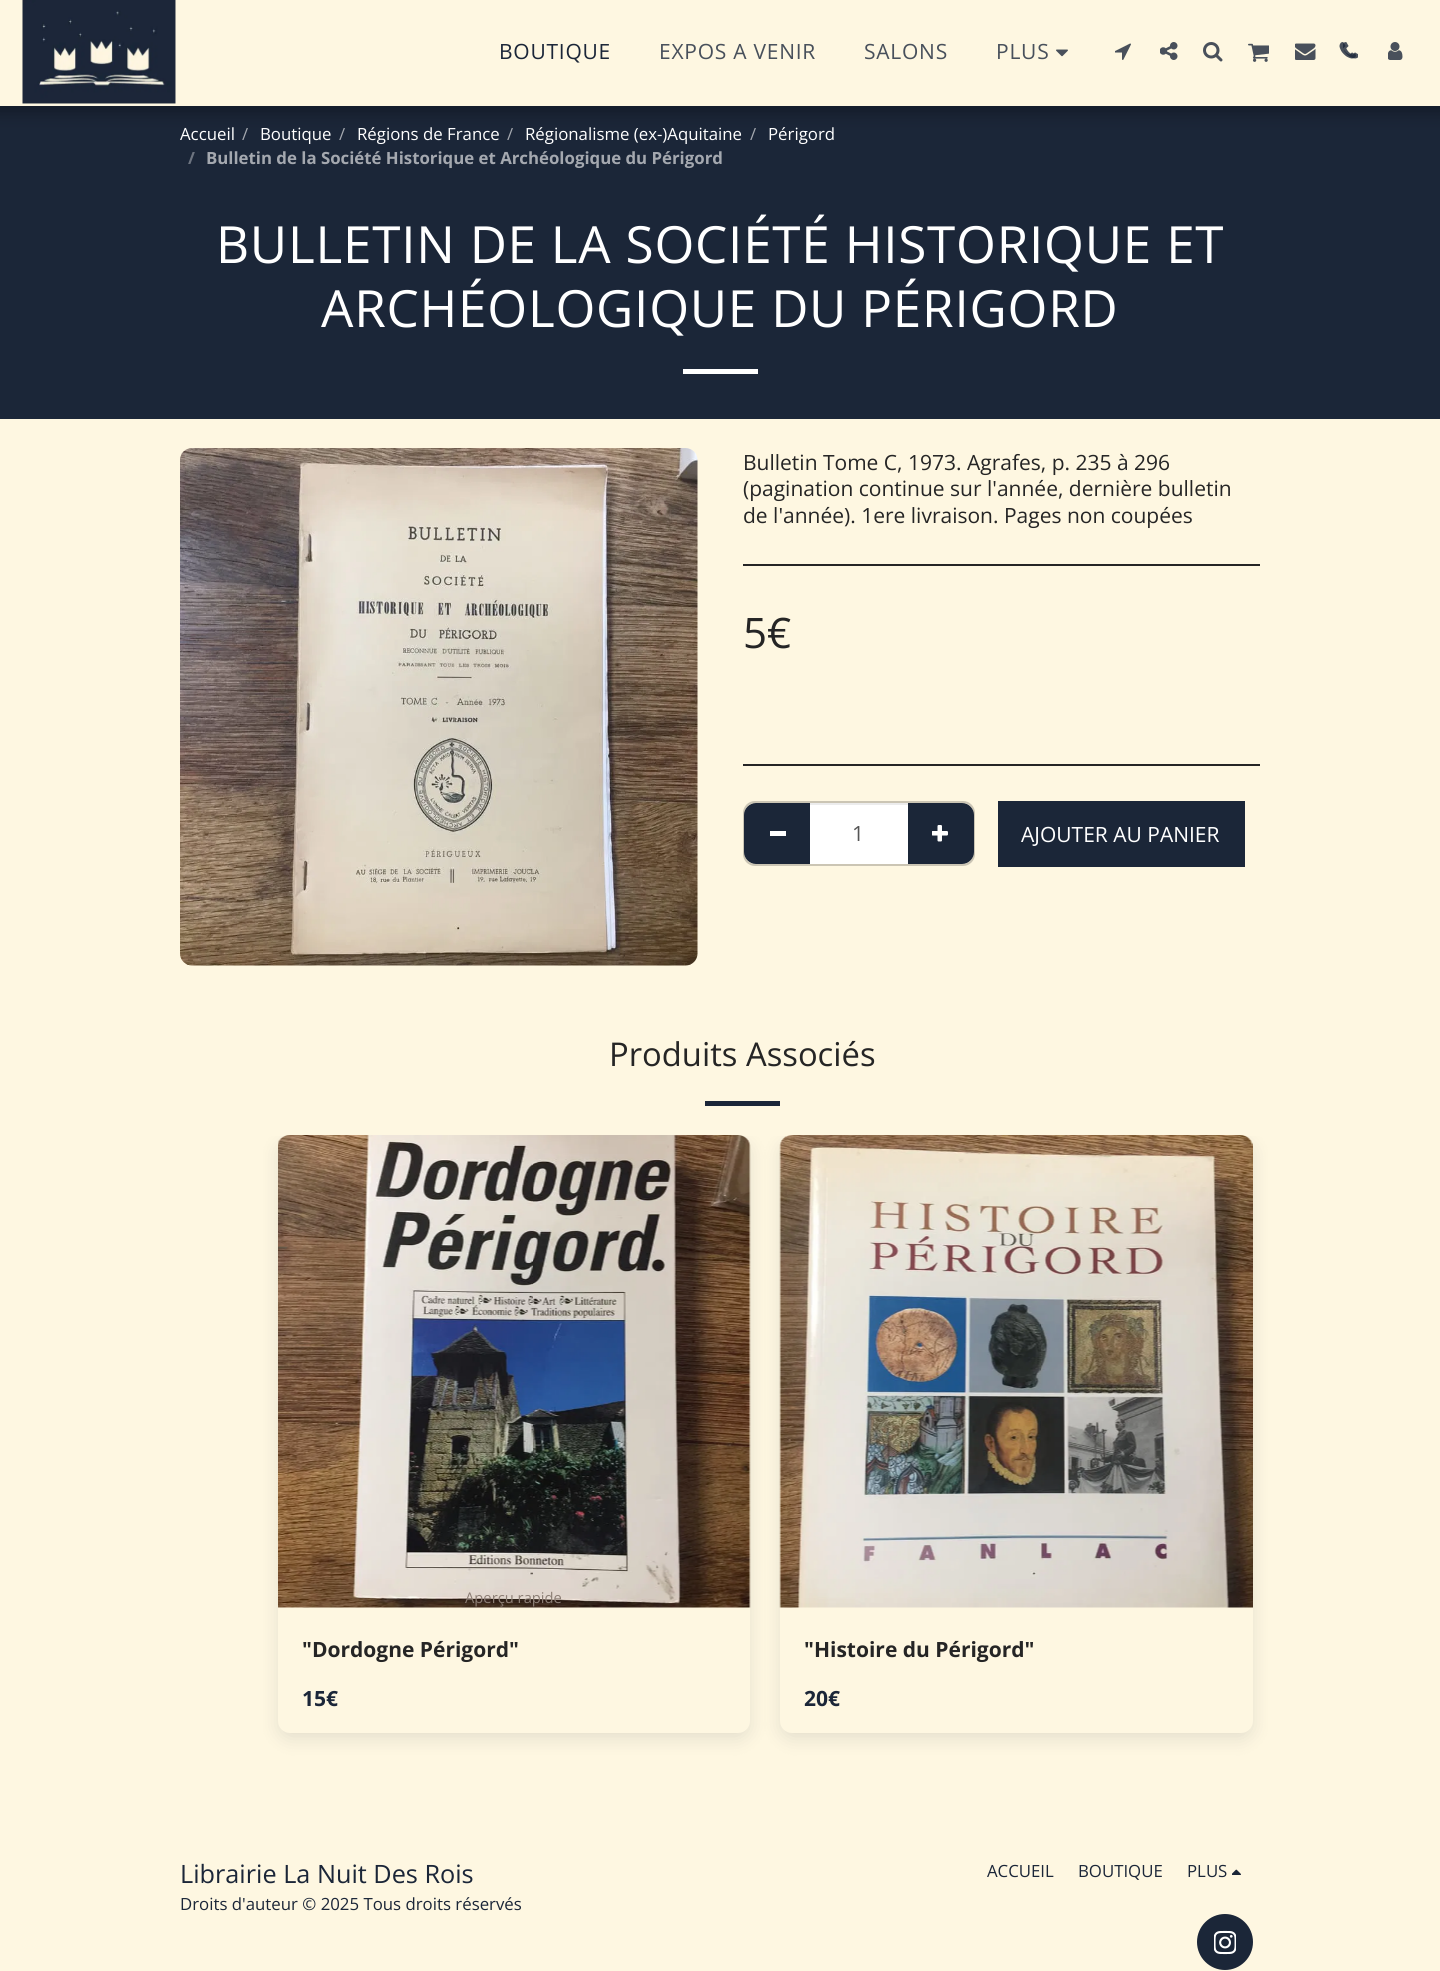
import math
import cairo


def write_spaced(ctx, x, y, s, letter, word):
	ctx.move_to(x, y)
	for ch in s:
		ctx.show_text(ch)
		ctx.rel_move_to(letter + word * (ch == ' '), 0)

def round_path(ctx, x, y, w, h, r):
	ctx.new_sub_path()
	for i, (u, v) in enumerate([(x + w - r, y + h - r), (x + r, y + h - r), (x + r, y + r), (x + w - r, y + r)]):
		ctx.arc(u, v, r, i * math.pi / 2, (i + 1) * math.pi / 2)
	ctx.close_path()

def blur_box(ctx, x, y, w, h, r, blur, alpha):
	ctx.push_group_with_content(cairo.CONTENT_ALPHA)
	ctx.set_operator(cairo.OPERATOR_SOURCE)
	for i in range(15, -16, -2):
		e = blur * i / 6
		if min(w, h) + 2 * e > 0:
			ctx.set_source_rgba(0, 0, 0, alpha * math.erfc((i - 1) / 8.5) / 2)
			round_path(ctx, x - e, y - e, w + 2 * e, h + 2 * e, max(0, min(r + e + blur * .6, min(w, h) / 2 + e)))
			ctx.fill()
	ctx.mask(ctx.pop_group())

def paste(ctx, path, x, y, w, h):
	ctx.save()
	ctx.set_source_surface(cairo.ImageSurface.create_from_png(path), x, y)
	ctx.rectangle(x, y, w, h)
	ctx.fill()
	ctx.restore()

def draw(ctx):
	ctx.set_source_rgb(0.996, 0.965, 0.882)
	ctx.paint()
	ctx.set_source_rgb(0.106, 0.149, 0.22)
	ctx.rectangle(0, 106, 1440, 313)
	ctx.fill()
	ctx.set_source_rgb(0, 0, 0)
	blur_box(ctx, -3, 0, 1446, 111, 0, 9, 0.35)
	ctx.set_source_rgb(0.996, 0.965, 0.882)
	ctx.rectangle(0, 0, 1440, 106)
	ctx.fill()
	paste(ctx, 'media/1.png', 22, 0, 154, 104)
	ctx.select_font_face('Open Sans')
	ctx.set_font_size(21)
	ctx.set_source_rgb(0.106, 0.149, 0.22)
	write_spaced(ctx, 499, 59, 'BOUTIQUE', 0.75, 0)
	ctx.set_source_rgb(0.282, 0.314, 0.357)
	for x, y, s in [
		(659, 59, 'EXPOS A VENIR'),
		(864, 59, 'SALONS'),
		(996, 59, 'PLUS'),
	]:
		write_spaced(ctx, x, y, s, 0.75, 0)
	paste(ctx, 'media/2.png', 1056, 49, 12, 8)
	paste(ctx, 'media/3.png', 1115, 43, 16, 17)
	paste(ctx, 'media/4.png', 1160, 42, 18, 18)
	paste(ctx, 'media/5.png', 1203, 42, 20, 20)
	paste(ctx, 'media/6.png', 1248, 43, 21, 19)
	paste(ctx, 'media/7.png', 1295, 43, 21, 17)
	paste(ctx, 'media/8.png', 1343, 42, 15, 17)
	paste(ctx, 'media/9.png', 1339, 42, 17, 17)
	paste(ctx, 'media/10.png', 1388, 42, 15, 18)
	ctx.set_font_size(16.8)
	ctx.set_source_rgb(1, 1, 1)
	ctx.move_to(180, 140)
	ctx.show_text('Accueil')
	ctx.set_source_rgb(0.643, 0.659, 0.686)
	ctx.move_to(242, 140)
	ctx.show_text('/')
	ctx.set_source_rgb(1, 1, 1)
	ctx.move_to(260, 140)
	ctx.show_text('Boutique')
	ctx.set_source_rgb(0.643, 0.659, 0.686)
	ctx.move_to(339, 140)
	ctx.show_text('/')
	ctx.set_source_rgb(1, 1, 1)
	ctx.move_to(357, 140)
	ctx.show_text('Régions de France')
	ctx.set_source_rgb(0.643, 0.659, 0.686)
	ctx.move_to(507, 140)
	ctx.show_text('/')
	ctx.set_source_rgb(1, 1, 1)
	ctx.move_to(525, 140)
	ctx.show_text('Régionalisme (ex-)Aquitaine')
	ctx.set_source_rgb(0.643, 0.659, 0.686)
	ctx.move_to(750, 140)
	ctx.show_text('/')
	ctx.set_source_rgb(1, 1, 1)
	ctx.move_to(768, 140)
	ctx.show_text('Périgord')
	ctx.select_font_face('Open Sans', cairo.FONT_SLANT_NORMAL, cairo.FONT_WEIGHT_BOLD)
	ctx.set_source_rgb(0.427, 0.455, 0.502)
	ctx.move_to(188, 164)
	ctx.show_text('/')
	ctx.set_source_rgb(0.643, 0.659, 0.686)
	ctx.move_to(206, 164)
	ctx.show_text('Bulletin de la Société Historique et Archéologique du Périgord')
	ctx.select_font_face('Open Sans')
	ctx.set_font_size(51.25)
	ctx.set_source_rgb(1, 1, 1)
	write_spaced(ctx, 216, 263, 'BULLETIN DE LA SOCIÉTÉ HISTORIQUE ET', 0.75, 0)
	write_spaced(ctx, 321, 327, 'ARCHÉOLOGIQUE DU PÉRIGORD', 0.75, 0)
	ctx.rectangle(683, 369, 75, 5)
	ctx.fill()
	paste(ctx, 'media/11.png', 180, 448, 518, 518)
	ctx.set_font_size(21)
	ctx.set_source_rgb(0.145, 0.145, 0.145)
	for x, y, s in [
		(743, 470, 'Bulletin Tome C, 1973. Agrafes, p. 235 à 296'),
		(743, 496, '(pagination continue sur l\'année, dernière bulletin'),
		(743, 523, 'de l\'année). 1ere livraison. Pages non coupées'),
	]:
		ctx.move_to(x, y)
		ctx.show_text(s)
	ctx.rectangle(743, 564, 517, 2)
	ctx.fill()
	ctx.set_font_size(42)
	ctx.move_to(743, 648)
	ctx.show_text('5€')
	ctx.rectangle(743, 764, 517, 2)
	ctx.fill()
	round_path(ctx, 744, 802, 230, 63, 11)
	ctx.set_source_rgb(0.796, 0.773, 0.706)
	ctx.stroke()
	ctx.set_source_rgb(0.106, 0.149, 0.22)
	ctx.new_path()
	ctx.move_to(756, 803)
	ctx.line_to(812, 803)
	ctx.line_to(812, 864)
	ctx.line_to(756, 864)
	ctx.curve_to(749.5, 864, 744, 858.5, 744, 852)
	ctx.line_to(744, 815)
	ctx.curve_to(744, 808.5, 749.5, 803, 756, 803)
	ctx.close_path()
	ctx.fill()
	ctx.set_source_rgb(1, 1, 1)
	ctx.rectangle(770, 831, 16, 5)
	ctx.fill()
	ctx.set_source_rgb(0.106, 0.149, 0.22)
	ctx.new_path()
	ctx.move_to(906, 803)
	ctx.line_to(962, 803)
	ctx.curve_to(968.5, 803, 974, 808.5, 974, 815)
	ctx.line_to(974, 852)
	ctx.curve_to(974, 858.5, 968.5, 864, 962, 864)
	ctx.line_to(906, 864)
	ctx.close_path()
	ctx.fill()
	ctx.set_source_rgb(1, 1, 1)
	ctx.rectangle(810, 805, 98, 59)
	ctx.fill()
	ctx.set_source_rgb(0.925, 0.925, 0.925)
	ctx.rectangle(810, 803, 98, 2)
	ctx.fill()
	ctx.set_font_size(21)
	ctx.set_source_rgb(0.333, 0.333, 0.333)
	ctx.move_to(852, 841)
	ctx.show_text('1')
	paste(ctx, 'media/12.png', 932, 825, 16, 17)
	ctx.set_source_rgb(0.106, 0.149, 0.22)
	ctx.rectangle(998, 801, 247, 66)
	ctx.fill()
	ctx.set_source_rgb(1, 1, 1)
	ctx.move_to(1021, 842)
	ctx.show_text('AJOUTER AU PANIER')
	ctx.set_font_size(32.75)
	ctx.set_source_rgb(0.145, 0.145, 0.145)
	ctx.move_to(609, 1066)
	ctx.show_text('Produits Associés')
	ctx.set_source_rgb(0.106, 0.149, 0.22)
	ctx.rectangle(705, 1101, 75, 5)
	ctx.fill()
	ctx.save()
	ctx.rectangle(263, 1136, 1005, 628)
	ctx.clip()
	ctx.set_source_rgb(0.506, 0.506, 0.506)
	blur_box(ctx, 278, 1142, 472, 597, 12, 9, 0.2)
	ctx.restore()
	ctx.set_source_rgb(0.996, 0.965, 0.882)
	round_path(ctx, 278, 1136, 472, 597, 12)
	ctx.fill()
	paste(ctx, 'media/13.png', 278, 1135, 473, 473)
	ctx.set_font_size(14.75)
	ctx.set_source_rgb(0.549, 0.494, 0.459)
	ctx.move_to(465, 1603)
	ctx.show_text('Aperçu rapide')
	ctx.select_font_face('Open Sans', cairo.FONT_SLANT_NORMAL, cairo.FONT_WEIGHT_BOLD)
	ctx.set_font_size(21)
	ctx.set_source_rgb(0.145, 0.145, 0.145)
	ctx.move_to(302, 1657)
	ctx.show_text('"Dordogne Périgord"')
	ctx.set_source_rgb(0.106, 0.149, 0.22)
	ctx.move_to(302, 1706)
	ctx.show_text('15€')
	ctx.save()
	ctx.rectangle(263, 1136, 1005, 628)
	ctx.clip()
	ctx.set_source_rgb(0.506, 0.506, 0.506)
	blur_box(ctx, 780, 1142, 473, 597, 12, 9, 0.2)
	ctx.restore()
	ctx.set_source_rgb(0.996, 0.965, 0.882)
	round_path(ctx, 780, 1136, 473, 597, 12)
	ctx.fill()
	paste(ctx, 'media/14.png', 779, 1135, 474, 473)
	ctx.set_source_rgb(0.145, 0.145, 0.145)
	ctx.move_to(804, 1657)
	ctx.show_text('"Histoire du Périgord"')
	ctx.set_source_rgb(0.106, 0.149, 0.22)
	ctx.move_to(804, 1706)
	ctx.show_text('20€')
	ctx.select_font_face('Open Sans')
	ctx.set_font_size(25.25)
	ctx.move_to(180, 1883)
	ctx.show_text('Librairie La Nuit Des Rois')
	ctx.set_font_size(16.8)
	for x, y, s in [
		(180, 1910, 'Droits d\'auteur © 2025 Tous droits réservés'),
		(987, 1877, 'ACCUEIL'),
		(1078, 1877, 'BOUTIQUE'),
		(1187, 1877, 'PLUS'),
	]:
		ctx.move_to(x, y)
		ctx.show_text(s)
	paste(ctx, 'media/15.png', 1232, 1869, 9, 6)
	ctx.arc(1225, 1942, 27, 0, 2 * math.pi)
	ctx.fill_preserve()
	ctx.stroke()
	paste(ctx, 'media/16.png', 1214, 1930, 22, 25)


surface = cairo.ImageSurface(cairo.FORMAT_RGB24, 1440, 1971)
ctx = cairo.Context(surface)
options = cairo.FontOptions()
options.set_hint_metrics(cairo.HINT_METRICS_OFF)
options.set_hint_style(cairo.HINT_STYLE_NONE)
ctx.set_font_options(options)
ctx.set_miter_limit(4)
draw(ctx)
surface.write_to_png('image.png')
